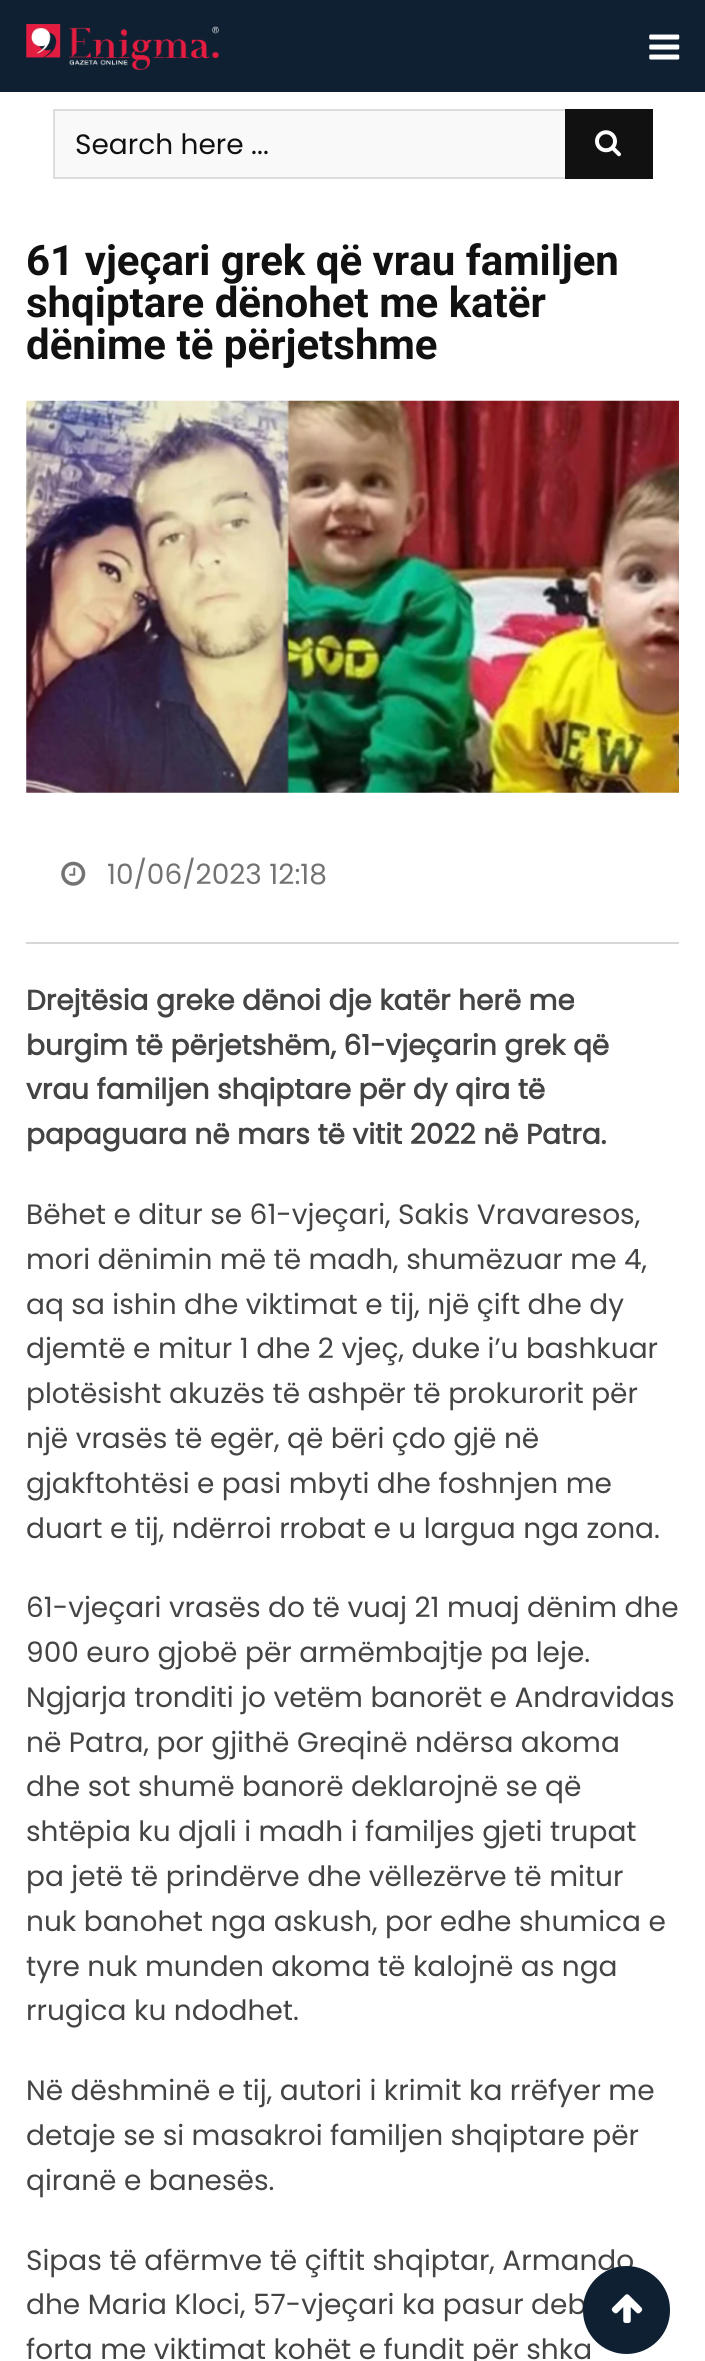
import math
import cairo


def round_path(ctx, x, y, w, h, r):
	ctx.new_sub_path()
	for i, (u, v) in enumerate([(x + w - r, y + h - r), (x + r, y + h - r), (x + r, y + r), (x + w - r, y + r)]):
		ctx.arc(u, v, r, i * math.pi / 2, (i + 1) * math.pi / 2)
	ctx.close_path()

def paste(ctx, path, x, y, w, h):
	ctx.save()
	ctx.set_source_surface(cairo.ImageSurface.create_from_png(path), x, y)
	ctx.rectangle(x, y, w, h)
	ctx.fill()
	ctx.restore()

def draw(ctx):
	ctx.set_source_rgb(1, 1, 1)
	ctx.paint()
	ctx.set_source_rgb(0.055, 0.125, 0.196)
	ctx.rectangle(0, 0, 705, 92)
	ctx.fill()
	paste(ctx, 'media/1.png', 26, 24, 193, 46)
	paste(ctx, 'media/2.png', 649, 34, 31, 26)
	ctx.set_source_rgb(0.973, 0.973, 0.973)
	ctx.rectangle(55, 111, 510, 66)
	ctx.fill()
	ctx.rectangle(54, 110, 598, 68)
	ctx.set_source_rgb(0.863, 0.863, 0.863)
	ctx.stroke()
	ctx.select_font_face('Poppins')
	ctx.set_font_size(28)
	ctx.set_source_rgb(0.067, 0.067, 0.067)
	ctx.move_to(75, 154)
	ctx.show_text('Search here ...')
	ctx.rectangle(565, 109, 88, 70)
	ctx.fill()
	paste(ctx, 'media/3.png', 595, 130, 26, 27)
	ctx.select_font_face('Roboto', cairo.FONT_SLANT_NORMAL, cairo.FONT_WEIGHT_BOLD)
	ctx.set_font_size(42)
	for x, y, s in [
		(26, 275, '61 vjeçari grek që vrau familjen'),
		(26, 317, 'shqiptare dënohet me katër'),
		(26, 359, 'dënime të përjetshme'),
	]:
		ctx.move_to(x, y)
		ctx.show_text(s)
	paste(ctx, 'media/4.png', 26, 400, 653, 393)
	paste(ctx, 'media/5.png', 61, 861, 25, 25)
	ctx.select_font_face('Poppins')
	ctx.set_font_size(28)
	ctx.set_source_rgb(0.459, 0.447, 0.447)
	ctx.move_to(107, 884)
	ctx.show_text('10/06/2023 12:18')
	ctx.set_source_rgb(0.843, 0.843, 0.843)
	ctx.rectangle(26, 942, 653, 2)
	ctx.fill()
	ctx.select_font_face('Poppins', cairo.FONT_SLANT_NORMAL, cairo.FONT_WEIGHT_BOLD)
	ctx.set_source_rgb(0.267, 0.267, 0.267)
	for x, y, s in [
		(26, 1010, 'Drejtësia greke dënoi dje katër herë me'),
		(26, 1055, 'burgim të përjetshëm, 61-vjeçarin grek që'),
		(26, 1099, 'vrau familjen shqiptare për dy qira të'),
		(26, 1144, 'papaguara në mars të vitit 2022 në Patra.'),
	]:
		ctx.move_to(x, y)
		ctx.show_text(s)
	ctx.select_font_face('Poppins')
	for x, y, s in [
		(26, 1224, 'Bëhet e ditur se 61-vjeçari, Sakis Vravaresos,'),
		(26, 1269, 'mori dënimin më të madh, shumëzuar me 4,'),
		(26, 1314, 'aq sa ishin dhe viktimat e tij, një çift dhe dy'),
		(26, 1358, 'djemtë e mitur 1 dhe 2 vjeç, duke i’u bashkuar'),
		(26, 1403, 'plotësisht akuzës të ashpër të prokurorit për'),
		(26, 1448, 'një vrasës të egër, që bëri çdo gjë në'),
		(26, 1493, 'gjakftohtësi e pasi mbyti dhe foshnjen me'),
		(26, 1538, 'duart e tij, ndërroi rrobat e u largua nga zona.'),
		(26, 1617, '61-vjeçari vrasës do të vuaj 21 muaj dënim dhe'),
		(26, 1662, '900 euro gjobë për armëmbajtje pa leje.'),
		(26, 1707, 'Ngjarja tronditi jo vetëm banorët e Andravidas'),
		(26, 1752, 'në Patra, por gjithë Greqinë ndërsa akoma'),
		(26, 1796, 'dhe sot shumë banorë deklarojnë se që'),
		(26, 1841, 'shtëpia ku djali i madh i familjes gjeti trupat'),
		(26, 1886, 'pa jetë të prindërve dhe vëllezërve të mitur'),
		(26, 1931, 'nuk banohet nga askush, por edhe shumica e'),
		(26, 1976, 'tyre nuk munden akoma të kalojnë as nga'),
		(26, 2020, 'rrugica ku ndodhet.'),
		(26, 2100, 'Në dëshminë e tij, autori i krimit ka rrëfyer me'),
		(26, 2145, 'detaje se si masakroi familjen shqiptare për'),
		(26, 2190, 'qiranë e banesës.'),
		(26, 2270, 'Sipas të afërmve të çiftit shqiptar, Armando'),
		(26, 2314, 'dhe Maria Kloci, 57-vjeçari ka pasur deb'),
		(26, 2359, 'forta me viktimat kohët e fundit për shka'),
	]:
		ctx.move_to(x, y)
		ctx.show_text(s)
	ctx.set_source_rgb(0.055, 0.125, 0.196)
	round_path(ctx, 585, 2268, 83, 84, 41.5)
	ctx.fill_preserve()
	ctx.set_line_width(4)
	ctx.stroke()
	paste(ctx, 'media/6.png', 611, 2294, 32, 29)


surface = cairo.ImageSurface(cairo.FORMAT_RGB24, 705, 2361)
ctx = cairo.Context(surface)
options = cairo.FontOptions()
options.set_hint_metrics(cairo.HINT_METRICS_OFF)
options.set_hint_style(cairo.HINT_STYLE_NONE)
ctx.set_font_options(options)
ctx.set_miter_limit(4)
draw(ctx)
surface.write_to_png('image.png')
